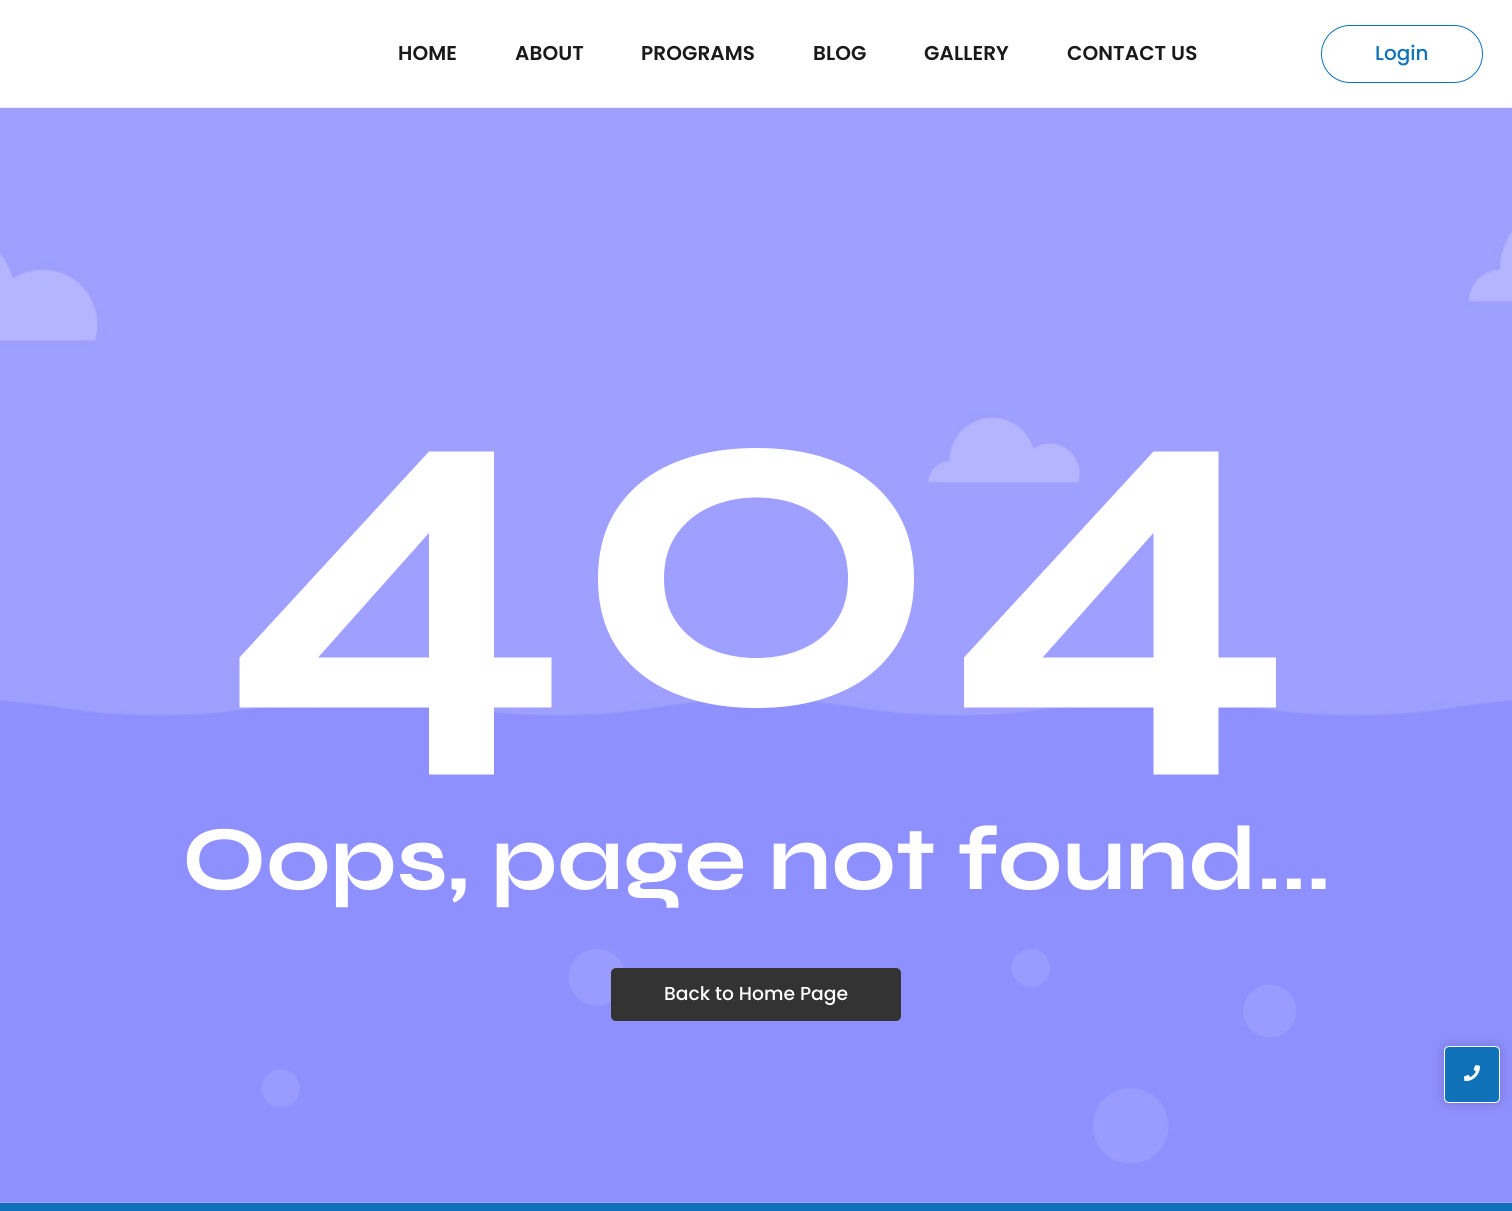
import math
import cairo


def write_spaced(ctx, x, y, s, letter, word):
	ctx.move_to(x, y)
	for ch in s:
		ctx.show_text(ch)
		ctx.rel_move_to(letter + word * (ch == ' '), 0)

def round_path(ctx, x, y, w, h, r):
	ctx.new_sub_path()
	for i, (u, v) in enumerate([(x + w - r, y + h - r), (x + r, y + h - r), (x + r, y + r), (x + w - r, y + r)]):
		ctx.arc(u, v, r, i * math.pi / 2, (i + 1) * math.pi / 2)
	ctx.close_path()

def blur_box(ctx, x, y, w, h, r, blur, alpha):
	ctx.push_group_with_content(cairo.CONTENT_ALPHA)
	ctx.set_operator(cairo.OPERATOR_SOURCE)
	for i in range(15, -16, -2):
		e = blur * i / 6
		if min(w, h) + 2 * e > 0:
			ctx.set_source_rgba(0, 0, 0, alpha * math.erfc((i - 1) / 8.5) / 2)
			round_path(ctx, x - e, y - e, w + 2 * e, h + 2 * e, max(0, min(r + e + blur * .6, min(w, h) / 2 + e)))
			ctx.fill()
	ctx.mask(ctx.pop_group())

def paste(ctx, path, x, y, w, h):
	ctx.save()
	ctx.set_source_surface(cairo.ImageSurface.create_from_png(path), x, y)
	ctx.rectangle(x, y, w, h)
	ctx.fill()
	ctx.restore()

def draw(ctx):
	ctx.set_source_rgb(1, 1, 1)
	ctx.paint()
	ctx.select_font_face('Poppins SemiBold')
	ctx.set_font_size(20)
	ctx.set_source_rgb(0.102, 0.098, 0.098)
	for x, y, s in [
		(398, 60, 'HOME'),
		(515, 60, 'ABOUT'),
		(641, 60, 'PROGRAMS'),
		(813, 60, 'BLOG'),
		(924, 60, 'GALLERY'),
		(1067, 60, 'CONTACT US'),
	]:
		write_spaced(ctx, x, y, s, 0.1, 0)
	round_path(ctx, 1321.5, 25.5, 161, 57, 28.5)
	ctx.set_source_rgb(0.055, 0.447, 0.725)
	ctx.set_line_width(1)
	ctx.stroke()
	ctx.select_font_face('Poppins Medium')
	ctx.move_to(1375, 60)
	ctx.show_text('Login')
	paste(ctx, 'media/1.png', 0, 107, 1512, 1096)
	ctx.set_source_rgba(0.42, 0.427, 1, 0.5)
	ctx.rectangle(0, 108, 1512, 1095)
	ctx.fill()
	ctx.select_font_face('Syne', cairo.FONT_SLANT_NORMAL, cairo.FONT_WEIGHT_BOLD)
	ctx.set_font_size(500)
	ctx.set_source_rgb(1, 1, 1)
	ctx.move_to(216, 702)
	ctx.show_text('404')
	ctx.set_font_size(91.25)
	ctx.move_to(182, 889)
	ctx.show_text('Oops, page not found...')
	ctx.set_source_rgb(0.2, 0.2, 0.2)
	round_path(ctx, 611, 968, 290, 53, 5)
	ctx.fill()
	ctx.select_font_face('Poppins Medium')
	ctx.set_font_size(18.75)
	ctx.set_source_rgb(1, 1, 1)
	ctx.move_to(664, 1000)
	ctx.show_text('Back to Home Page')
	ctx.set_source_rgb(0, 0, 0)
	blur_box(ctx, 1444, 1046, 56, 57, 5, 6, 0.2)
	ctx.set_source_rgb(0.059, 0.447, 0.725)
	round_path(ctx, 1444.5, 1046.5, 55, 56, 4.5)
	ctx.fill_preserve()
	ctx.set_source_rgb(1, 1, 1)
	ctx.stroke()
	paste(ctx, 'media/2.png', 1464, 1065, 16, 16)
	ctx.set_source_rgb(0.059, 0.447, 0.725)
	ctx.rectangle(0, 1203, 1512, 8)
	ctx.fill()


surface = cairo.ImageSurface(cairo.FORMAT_RGB24, 1512, 1211)
ctx = cairo.Context(surface)
options = cairo.FontOptions()
options.set_hint_metrics(cairo.HINT_METRICS_OFF)
options.set_hint_style(cairo.HINT_STYLE_NONE)
ctx.set_font_options(options)
ctx.set_miter_limit(4)
draw(ctx)
surface.write_to_png('image.png')
